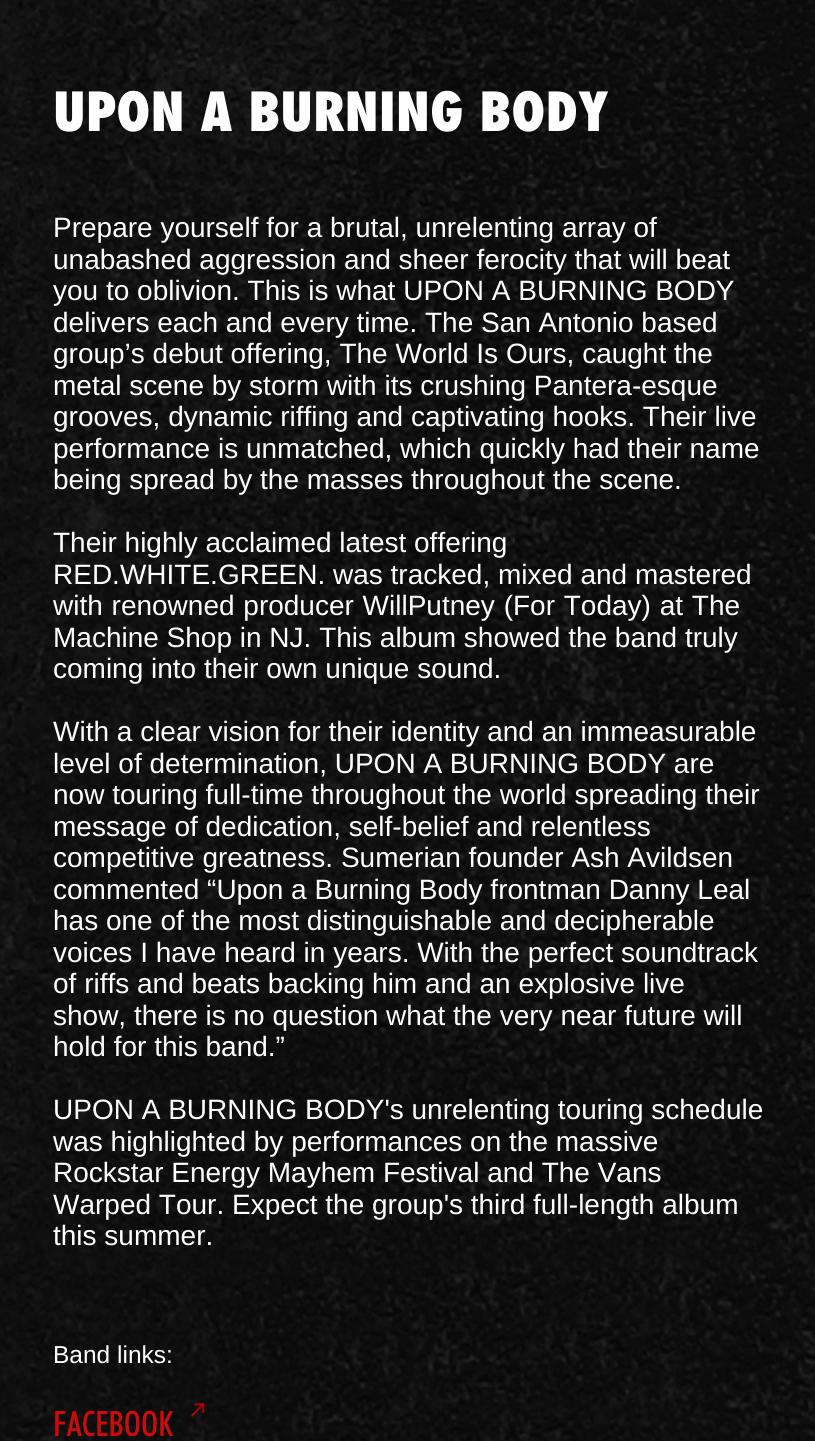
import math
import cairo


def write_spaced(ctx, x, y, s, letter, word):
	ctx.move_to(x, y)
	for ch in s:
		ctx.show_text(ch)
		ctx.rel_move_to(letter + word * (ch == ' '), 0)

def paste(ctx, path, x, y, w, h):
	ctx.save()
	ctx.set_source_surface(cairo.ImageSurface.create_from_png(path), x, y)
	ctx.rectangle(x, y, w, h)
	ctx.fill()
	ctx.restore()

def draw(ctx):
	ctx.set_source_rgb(1, 1, 1)
	ctx.paint()
	paste(ctx, 'media/1.png', 0, 0, 815, 1441)
	ctx.select_font_face('Futura ExtraBold')
	ctx.set_font_size(52.5)
	ctx.set_source_rgb(1, 1, 1)
	ctx.move_to(53, 131)
	ctx.show_text('UPON A BURNING BODY')
	ctx.select_font_face('Liberation Sans')
	ctx.set_font_size(28)
	for x, y, s in [
		(53, 237, 'Prepare yourself for a brutal, unrelenting array of'),
		(53, 269, 'unabashed aggression and sheer ferocity that will beat'),
		(53, 300, 'you to oblivion. This is what UPON A BURNING BODY'),
		(53, 332, 'delivers each and every time. The San Antonio based'),
		(53, 363, 'group’s debut offering, The World Is Ours, caught the'),
		(53, 395, 'metal scene by storm with its crushing Pantera-esque'),
		(53, 426, 'grooves, dynamic riffing and captivating hooks. Their live'),
		(53, 458, 'performance is unmatched, which quickly had their name'),
		(53, 489, 'being spread by the masses throughout the scene.'),
		(53, 552, 'Their highly acclaimed latest offering'),
		(53, 584, 'RED.WHITE.GREEN. was tracked, mixed and mastered'),
	]:
		ctx.move_to(x, y)
		ctx.show_text(s)
	write_spaced(ctx, 53, 615, 'with renowned producer WillPutney (For Today) at The', 0, 1)
	for x, y, s in [
		(53, 647, 'Machine Shop in NJ. This album showed the band truly'),
		(53, 678, 'coming into their own unique sound.'),
		(53, 741, 'With a clear vision for their identity and an immeasurable'),
		(53, 773, 'level of determination, UPON A BURNING BODY are'),
		(53, 804, 'now touring full-time throughout the world spreading their'),
		(53, 836, 'message of dedication, self-belief and relentless'),
		(53, 867, 'competitive greatness. Sumerian founder Ash Avildsen'),
		(53, 899, 'commented “Upon a Burning Body frontman Danny Leal'),
		(53, 930, 'has one of the most distinguishable and decipherable'),
		(53, 962, 'voices I have heard in years. With the perfect soundtrack'),
		(53, 993, 'of riffs and beats backing him and an explosive live'),
		(53, 1025, 'show, there is no question what the very near future will'),
		(53, 1056, 'hold for this band.”'),
		(53, 1119, 'UPON A BURNING BODY\'s unrelenting touring schedule'),
		(53, 1151, 'was highlighted by performances on the massive'),
		(53, 1182, 'Rockstar Energy Mayhem Festival and The Vans'),
		(53, 1214, 'Warped Tour. Expect the group\'s third full-length album'),
		(53, 1245, 'this summer.'),
	]:
		ctx.move_to(x, y)
		ctx.show_text(s)
	ctx.set_font_size(24.5)
	ctx.move_to(53, 1363)
	ctx.show_text('Band links:')
	ctx.select_font_face('Futura Medium')
	ctx.set_font_size(35)
	ctx.set_source_rgb(0.804, 0.047, 0.039)
	ctx.move_to(53, 1436)
	ctx.show_text('FACEBOOK')
	paste(ctx, 'media/2.png', 190, 1403, 15, 14)


surface = cairo.ImageSurface(cairo.FORMAT_RGB24, 815, 1441)
ctx = cairo.Context(surface)
options = cairo.FontOptions()
options.set_hint_metrics(cairo.HINT_METRICS_OFF)
options.set_hint_style(cairo.HINT_STYLE_NONE)
ctx.set_font_options(options)
ctx.set_miter_limit(4)
draw(ctx)
surface.write_to_png('image.png')
